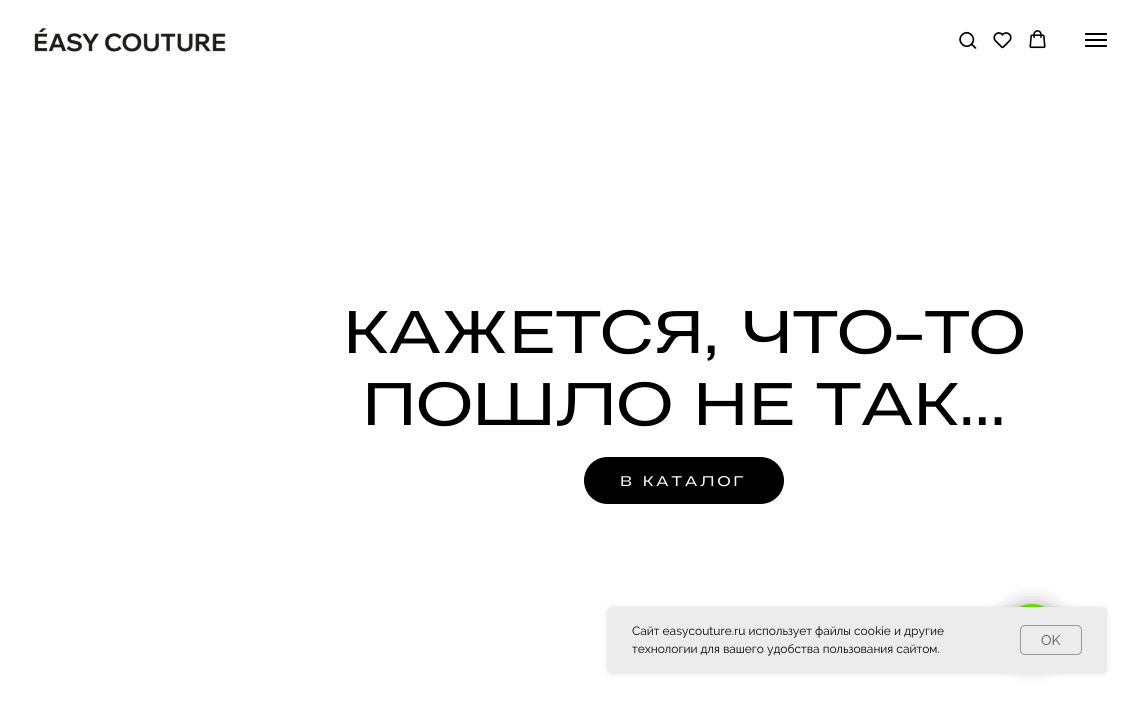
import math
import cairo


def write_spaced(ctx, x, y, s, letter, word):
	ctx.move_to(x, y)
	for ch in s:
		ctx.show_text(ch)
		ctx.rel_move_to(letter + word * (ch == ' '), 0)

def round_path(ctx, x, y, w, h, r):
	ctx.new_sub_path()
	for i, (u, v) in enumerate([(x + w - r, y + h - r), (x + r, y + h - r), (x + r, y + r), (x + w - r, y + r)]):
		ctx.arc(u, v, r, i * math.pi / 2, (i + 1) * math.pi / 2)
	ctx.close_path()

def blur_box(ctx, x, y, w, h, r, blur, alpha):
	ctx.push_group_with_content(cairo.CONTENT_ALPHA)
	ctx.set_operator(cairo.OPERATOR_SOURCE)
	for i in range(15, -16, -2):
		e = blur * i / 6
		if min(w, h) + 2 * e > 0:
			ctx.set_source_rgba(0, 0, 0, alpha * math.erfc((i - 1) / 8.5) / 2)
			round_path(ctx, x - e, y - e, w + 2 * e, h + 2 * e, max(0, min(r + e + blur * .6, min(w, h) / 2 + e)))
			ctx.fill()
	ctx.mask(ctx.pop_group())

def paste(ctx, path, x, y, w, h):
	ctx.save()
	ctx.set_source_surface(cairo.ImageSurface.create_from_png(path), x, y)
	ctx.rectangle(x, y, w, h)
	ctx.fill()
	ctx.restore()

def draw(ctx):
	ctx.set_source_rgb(1, 1, 1)
	ctx.paint()
	paste(ctx, 'media/1.png', 34, 28, 192, 24)
	ctx.new_path()
	ctx.move_to(971.5, 35)
	ctx.curve_to(977.5, 41.5, 968, 50.5, 962, 44)
	ctx.curve_to(956, 37.5, 965.5, 28.5, 971.5, 35)
	ctx.close_path()
	ctx.set_source_rgb(0, 0, 0)
	ctx.set_line_width(1.7)
	ctx.stroke()
	ctx.new_path()
	ctx.move_to(972, 44.5)
	ctx.line_to(975.5, 48)
	ctx.set_line_cap(cairo.LINE_CAP_ROUND)
	ctx.stroke()
	paste(ctx, 'media/2.png', 993, 32, 19, 17)
	paste(ctx, 'media/3.png', 1029, 30, 17, 19)
	ctx.rectangle(1085, 33, 22, 2)
	ctx.rectangle(1085, 39, 22, 2)
	ctx.rectangle(1085, 45, 22, 2)
	ctx.fill()
	ctx.select_font_face('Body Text')
	ctx.set_font_size(60)
	ctx.move_to(343, 353)
	ctx.show_text('КАЖЕТСЯ, ЧТО-ТО')
	ctx.move_to(362, 425)
	ctx.show_text('ПОШЛО НЕ ТАК...')
	round_path(ctx, 584, 457, 200, 47, 23.5)
	ctx.fill()
	ctx.set_font_size(14)
	ctx.set_source_rgb(1, 1, 1)
	write_spaced(ctx, 620, 486, 'В КАТАЛОГ', 3, 0)
	ctx.set_source_rgb(0, 0, 0)
	blur_box(ctx, 1002, 604, 60, 60, 30, 10, 0.3)
	ctx.set_source_rgb(0.376, 0.878, 0.043)
	ctx.arc(1032, 634, 30, 0, 2 * math.pi)
	ctx.fill()
	ctx.set_source_rgb(0, 0, 0)
	blur_box(ctx, 607, 607, 500, 67, 5, 2.5, 0.1)
	ctx.set_source_rgb(0.922, 0.922, 0.922)
	round_path(ctx, 607, 607, 500, 67, 5)
	ctx.fill()
	ctx.select_font_face('Raleway')
	ctx.set_font_size(12)
	ctx.set_source_rgb(0, 0, 0)
	ctx.move_to(632, 635)
	ctx.show_text('Сайт easycouture.ru использует файлы cookie и другие')
	ctx.move_to(632, 653)
	ctx.show_text('технологии для вашего удобства пользования сайтом.')
	round_path(ctx, 1020.5, 625.5, 61, 29, 4.5)
	ctx.set_source_rgb(0.6, 0.6, 0.6)
	ctx.set_line_width(1)
	ctx.set_line_cap(cairo.LINE_CAP_BUTT)
	ctx.stroke()
	ctx.set_font_size(14)
	ctx.set_source_rgb(0.333, 0.333, 0.333)
	ctx.move_to(1041, 645)
	ctx.show_text('OK')


surface = cairo.ImageSurface(cairo.FORMAT_RGB24, 1127, 704)
ctx = cairo.Context(surface)
options = cairo.FontOptions()
options.set_hint_metrics(cairo.HINT_METRICS_OFF)
options.set_hint_style(cairo.HINT_STYLE_NONE)
ctx.set_font_options(options)
ctx.set_miter_limit(4)
draw(ctx)
surface.write_to_png('image.png')
